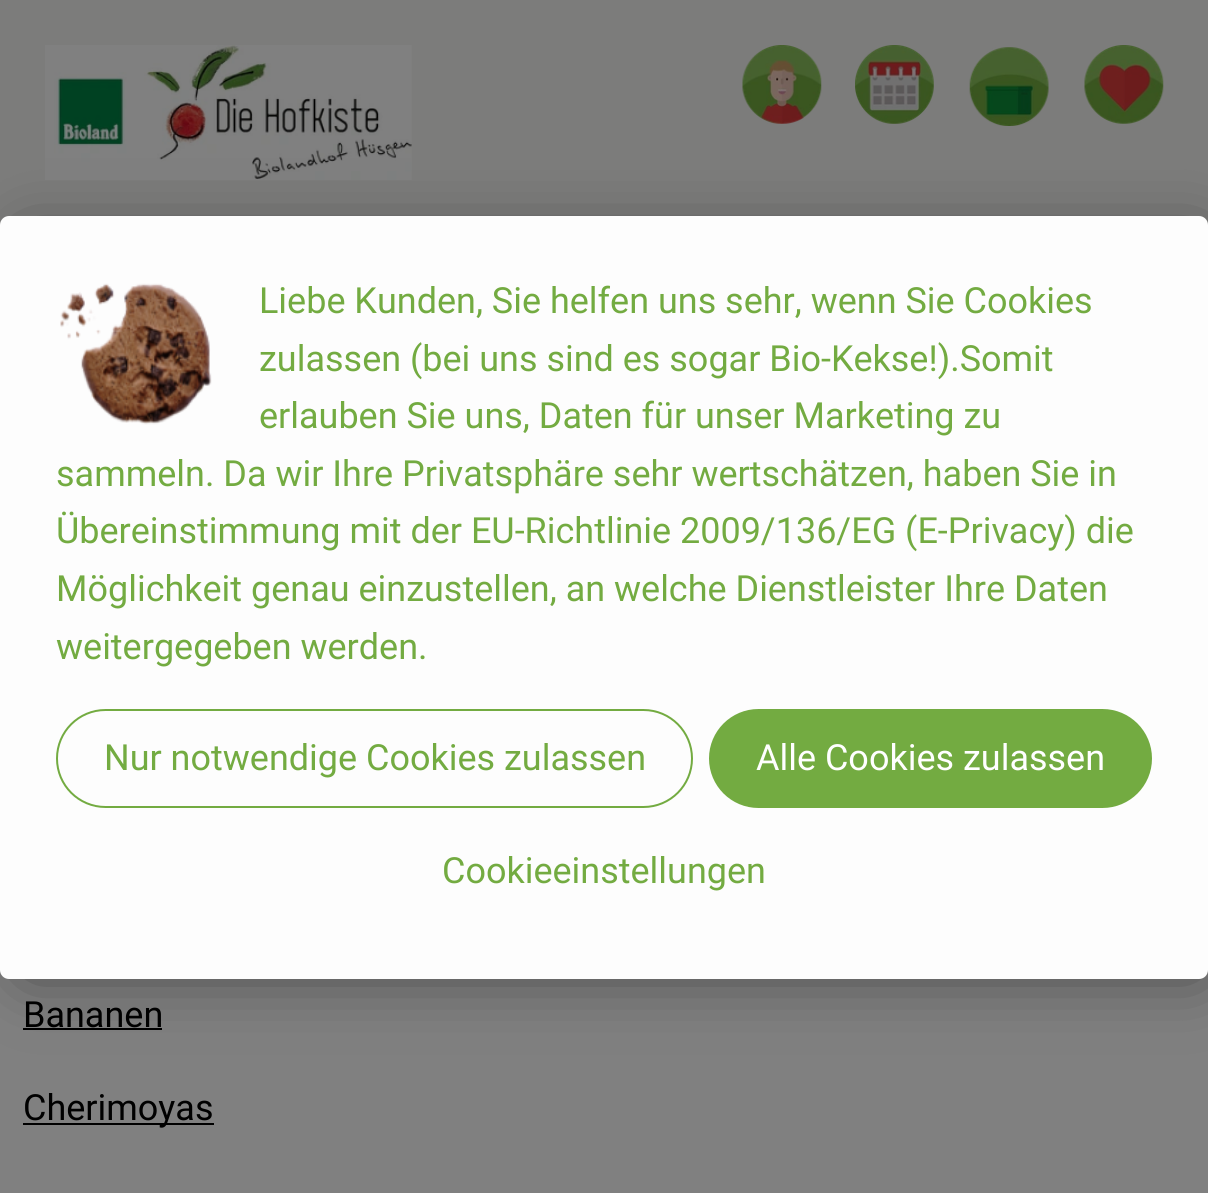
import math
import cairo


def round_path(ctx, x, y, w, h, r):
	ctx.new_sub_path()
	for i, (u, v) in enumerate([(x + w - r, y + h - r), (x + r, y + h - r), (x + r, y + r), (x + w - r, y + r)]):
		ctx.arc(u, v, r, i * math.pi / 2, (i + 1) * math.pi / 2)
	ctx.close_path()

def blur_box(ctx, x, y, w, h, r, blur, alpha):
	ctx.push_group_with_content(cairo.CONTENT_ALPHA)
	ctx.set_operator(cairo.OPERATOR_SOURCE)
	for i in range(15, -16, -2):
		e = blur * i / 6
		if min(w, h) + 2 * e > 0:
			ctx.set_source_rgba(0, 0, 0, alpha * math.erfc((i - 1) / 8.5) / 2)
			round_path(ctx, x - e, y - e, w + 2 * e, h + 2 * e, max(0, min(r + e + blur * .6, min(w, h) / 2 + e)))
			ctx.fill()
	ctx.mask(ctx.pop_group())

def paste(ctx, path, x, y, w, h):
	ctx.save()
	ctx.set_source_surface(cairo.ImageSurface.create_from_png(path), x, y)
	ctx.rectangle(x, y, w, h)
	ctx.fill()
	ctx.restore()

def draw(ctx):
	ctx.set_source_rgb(0.502, 0.502, 0.502)
	ctx.paint()
	ctx.set_source_rgb(0.486, 0.486, 0.482)
	ctx.rectangle(0, 0, 1208, 225)
	ctx.fill()
	paste(ctx, 'media/2.png', 45, 45, 367, 135)
	ctx.set_source_rgb(0, 0, 0)
	ctx.rectangle(23, 1028, 139, 2)
	ctx.fill()
	ctx.set_source_rgb(0, 0, 0)
	blur_box(ctx, 27, 243, 1172, 727, 0, 34, 0.5)
	ctx.set_source_rgb(0.992, 0.992, 0.992)
	round_path(ctx, 0, 216, 1208, 763, 9)
	ctx.fill()
	paste(ctx, 'media/1.png', 60, 283, 152, 142)
	ctx.select_font_face('Roboto')
	ctx.set_font_size(36)
	ctx.set_source_rgb(0.451, 0.671, 0.255)
	for x, y, s in [
		(259, 313, 'Liebe Kunden, Sie helfen uns sehr, wenn Sie Cookies'),
		(259, 371, 'zulassen (bei uns sind es sogar Bio-Kekse!).Somit'),
		(259, 428, 'erlauben Sie uns, Daten für unser Marketing zu'),
		(56, 486, 'sammeln. Da wir Ihre Privatsphäre sehr wertschätzen, haben Sie in'),
		(56, 543, 'Übereinstimmung mit der EU-Richtlinie 2009/136/EG (E-Privacy) die'),
		(56, 601, 'Möglichkeit genau einzustellen, an welche Dienstleister Ihre Daten'),
		(56, 659, 'weitergegeben werden.'),
	]:
		ctx.move_to(x, y)
		ctx.show_text(s)
	round_path(ctx, 57, 710, 635, 97, 48.5)
	ctx.stroke()
	ctx.move_to(104, 770)
	ctx.show_text('Nur notwendige Cookies zulassen')
	round_path(ctx, 710, 710, 441, 97, 48.5)
	ctx.fill_preserve()
	ctx.stroke()
	ctx.set_source_rgb(1, 1, 1)
	ctx.move_to(756, 770)
	ctx.show_text('Alle Cookies zulassen')
	ctx.set_source_rgb(0.451, 0.671, 0.255)
	ctx.move_to(442, 883)
	ctx.show_text('Cookieeinstellungen')
	paste(ctx, 'media/3.png', 742, 45, 80, 79)
	paste(ctx, 'media/4.png', 855, 45, 79, 79)
	paste(ctx, 'media/5.png', 969, 47, 80, 79)
	paste(ctx, 'media/6.png', 1084, 45, 80, 79)
	ctx.set_source_rgb(0, 0, 0)
	ctx.move_to(23, 1027)
	ctx.show_text('Bananen')
	ctx.rectangle(23, 1123, 191, 2)
	ctx.fill()
	ctx.move_to(23, 1120)
	ctx.show_text('Cherimoyas')


surface = cairo.ImageSurface(cairo.FORMAT_RGB24, 1208, 1193)
ctx = cairo.Context(surface)
options = cairo.FontOptions()
options.set_hint_metrics(cairo.HINT_METRICS_OFF)
options.set_hint_style(cairo.HINT_STYLE_NONE)
ctx.set_font_options(options)
ctx.set_miter_limit(4)
draw(ctx)
surface.write_to_png('image.png')
